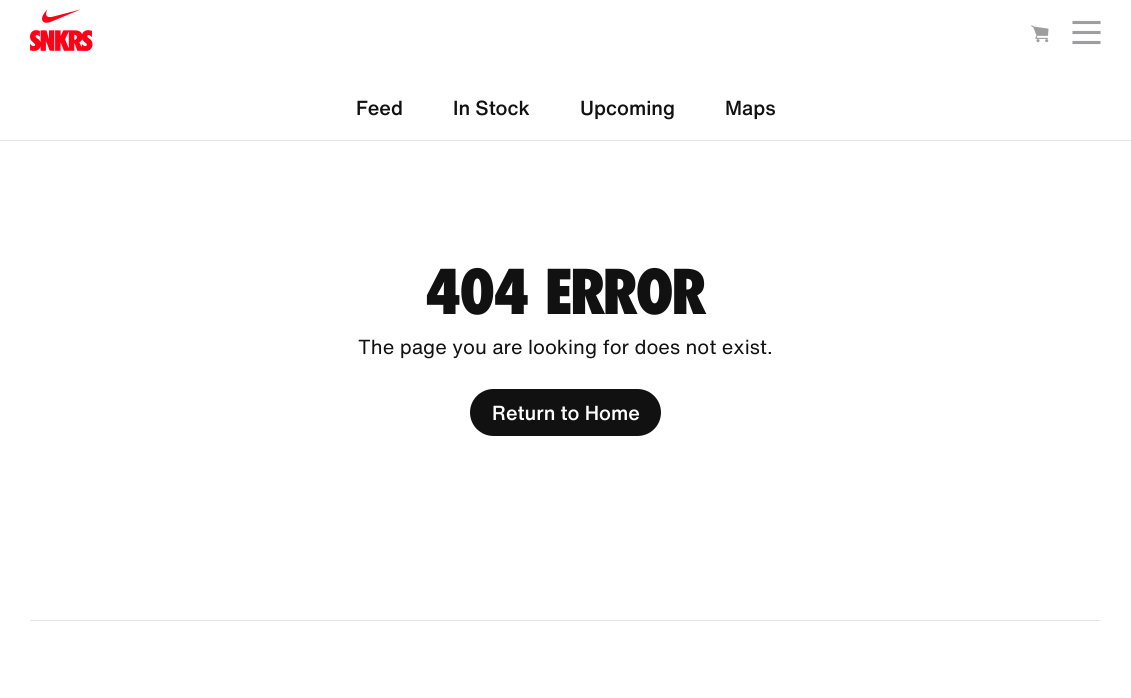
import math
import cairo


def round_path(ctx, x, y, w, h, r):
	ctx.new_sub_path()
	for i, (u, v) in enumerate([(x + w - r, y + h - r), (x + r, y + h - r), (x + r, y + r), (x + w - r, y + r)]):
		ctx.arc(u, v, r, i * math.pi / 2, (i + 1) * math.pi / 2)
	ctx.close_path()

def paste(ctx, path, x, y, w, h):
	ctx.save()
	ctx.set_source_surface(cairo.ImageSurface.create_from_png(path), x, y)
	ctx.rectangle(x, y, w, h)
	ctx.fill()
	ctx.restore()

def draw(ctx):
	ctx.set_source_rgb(1, 1, 1)
	ctx.paint()
	paste(ctx, 'media/1.png', 30, 9, 63, 42)
	paste(ctx, 'media/2.png', 1031, 25, 18, 18)
	ctx.new_path()
	ctx.move_to(1074, 22.5)
	ctx.line_to(1099, 22.5)
	ctx.move_to(1074, 32.5)
	ctx.line_to(1099, 32.5)
	ctx.move_to(1074, 42.5)
	ctx.line_to(1099, 42.5)
	ctx.set_source_rgb(0.62, 0.62, 0.627)
	ctx.set_line_width(3.1)
	ctx.set_line_cap(cairo.LINE_CAP_SQUARE)
	ctx.stroke()
	ctx.set_source_rgb(0.898, 0.898, 0.898)
	ctx.rectangle(0, 140, 1131, 1)
	ctx.fill()
	ctx.select_font_face('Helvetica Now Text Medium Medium')
	ctx.set_font_size(20)
	ctx.set_source_rgb(0.067, 0.067, 0.067)
	for x, y, s in [
		(356, 115, 'Feed'),
		(453, 115, 'In Stock'),
		(580, 115, 'Upcoming'),
		(725, 115, 'Maps'),
	]:
		ctx.move_to(x, y)
		ctx.show_text(s)
	ctx.select_font_face('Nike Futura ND', cairo.FONT_SLANT_NORMAL, cairo.FONT_WEIGHT_BOLD)
	ctx.set_font_size(60)
	ctx.move_to(426, 314)
	ctx.show_text('404 ERROR')
	ctx.select_font_face('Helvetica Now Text')
	ctx.set_font_size(20)
	ctx.move_to(358, 354)
	ctx.show_text('The page you are looking for does not exist.')
	round_path(ctx, 470, 389, 191, 47, 23.5)
	ctx.fill()
	ctx.select_font_face('Helvetica Now Text Medium Medium')
	ctx.set_source_rgb(1, 1, 1)
	ctx.move_to(492, 420)
	ctx.show_text('Return to Home')
	ctx.set_source_rgb(0.898, 0.898, 0.898)
	ctx.rectangle(30, 620, 1071, 1)
	ctx.fill()


surface = cairo.ImageSurface(cairo.FORMAT_RGB24, 1131, 698)
ctx = cairo.Context(surface)
options = cairo.FontOptions()
options.set_hint_metrics(cairo.HINT_METRICS_OFF)
options.set_hint_style(cairo.HINT_STYLE_NONE)
ctx.set_font_options(options)
ctx.set_miter_limit(4)
draw(ctx)
surface.write_to_png('image.png')
